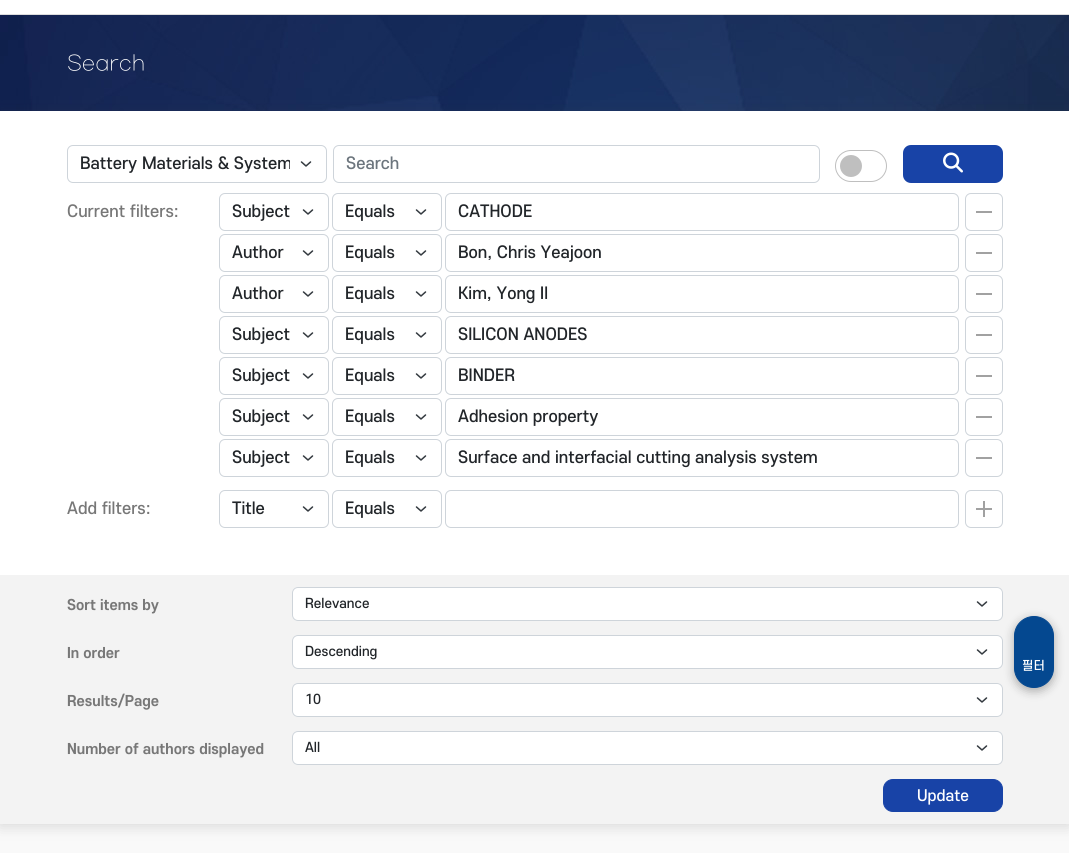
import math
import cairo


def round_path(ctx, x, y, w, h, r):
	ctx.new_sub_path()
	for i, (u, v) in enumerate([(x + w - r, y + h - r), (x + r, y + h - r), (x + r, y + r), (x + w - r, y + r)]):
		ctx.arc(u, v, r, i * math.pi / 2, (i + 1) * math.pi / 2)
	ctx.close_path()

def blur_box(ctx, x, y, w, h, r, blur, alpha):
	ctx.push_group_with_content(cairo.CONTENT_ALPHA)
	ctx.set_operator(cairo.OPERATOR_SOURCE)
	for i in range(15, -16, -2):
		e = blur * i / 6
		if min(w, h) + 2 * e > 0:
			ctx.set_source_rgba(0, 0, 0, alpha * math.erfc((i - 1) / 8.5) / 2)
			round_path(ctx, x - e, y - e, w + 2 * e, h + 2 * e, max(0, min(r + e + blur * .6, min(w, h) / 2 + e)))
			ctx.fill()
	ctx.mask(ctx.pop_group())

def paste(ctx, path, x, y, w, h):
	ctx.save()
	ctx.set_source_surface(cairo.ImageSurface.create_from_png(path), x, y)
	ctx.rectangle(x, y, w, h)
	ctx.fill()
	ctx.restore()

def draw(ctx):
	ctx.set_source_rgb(0.976, 0.976, 0.976)
	ctx.paint()
	ctx.set_source_rgb(1, 1, 1)
	ctx.rectangle(0, 0, 1069, 14)
	ctx.fill()
	ctx.set_source_rgb(0.867, 0.867, 0.867)
	ctx.rectangle(0, 14, 1069, 1)
	ctx.fill()
	paste(ctx, 'media/1.png', 0, 15, 1069, 96)
	ctx.select_font_face('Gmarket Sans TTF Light')
	ctx.set_font_size(20)
	ctx.set_source_rgb(1, 1, 1)
	ctx.move_to(67, 69)
	ctx.show_text('Search')
	ctx.set_source_rgb(0.282, 0.282, 0.282)
	blur_box(ctx, 0, 113, 1069, 713, 0, 7, 0.2)
	ctx.set_source_rgb(1, 1, 1)
	ctx.rectangle(0, 111, 1069, 464)
	ctx.fill()
	ctx.new_path()
	ctx.move_to(301.5, 162)
	ctx.line_to(306, 166)
	ctx.line_to(310.5, 162)
	ctx.set_source_rgb(0.204, 0.227, 0.251)
	ctx.set_line_width(1.5)
	ctx.set_line_cap(cairo.LINE_CAP_ROUND)
	ctx.set_line_join(cairo.LINE_JOIN_ROUND)
	ctx.stroke()
	round_path(ctx, 67.5, 145.5, 259, 37, 5.5)
	ctx.set_source_rgb(0.808, 0.831, 0.855)
	ctx.set_line_width(1)
	ctx.set_line_cap(cairo.LINE_CAP_BUTT)
	ctx.set_line_join(cairo.LINE_JOIN_MITER)
	ctx.stroke()
	ctx.save()
	ctx.rectangle(80, 152, 210, 24)
	ctx.clip()
	ctx.select_font_face('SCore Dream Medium')
	ctx.set_font_size(16)
	ctx.set_source_rgb(0.129, 0.145, 0.161)
	ctx.move_to(80, 169)
	ctx.show_text('Battery Materials & System')
	ctx.restore()
	round_path(ctx, 333.5, 145.5, 486, 37, 5.5)
	ctx.stroke()
	ctx.select_font_face('SCore Dream Medium')
	ctx.set_font_size(16)
	ctx.set_source_rgb(0.424, 0.459, 0.49)
	ctx.move_to(346, 169)
	ctx.show_text('Search')
	ctx.set_source_rgb(0.749, 0.749, 0.749)
	ctx.new_path()
	ctx.arc(851, 166, 11, 0, 2 * math.pi)
	ctx.fill()
	round_path(ctx, 835.5, 150.5, 51, 31, 15.5)
	ctx.stroke()
	ctx.set_source_rgb(0.094, 0.263, 0.655)
	round_path(ctx, 903, 145, 100, 38, 8)
	ctx.fill()
	paste(ctx, 'media/2.png', 943, 152, 20, 21)
	ctx.set_source_rgb(0.467, 0.467, 0.467)
	ctx.move_to(67, 217)
	ctx.show_text('Current filters:')
	ctx.new_path()
	ctx.move_to(303.5, 210)
	ctx.line_to(308, 214)
	ctx.line_to(312.5, 210)
	ctx.set_source_rgb(0.204, 0.227, 0.251)
	ctx.set_line_width(1.5)
	ctx.set_line_cap(cairo.LINE_CAP_ROUND)
	ctx.set_line_join(cairo.LINE_JOIN_ROUND)
	ctx.stroke()
	round_path(ctx, 219.5, 193.5, 109, 37, 5.5)
	ctx.set_source_rgb(0.808, 0.831, 0.855)
	ctx.set_line_width(1)
	ctx.set_line_cap(cairo.LINE_CAP_BUTT)
	ctx.set_line_join(cairo.LINE_JOIN_MITER)
	ctx.stroke()
	ctx.set_source_rgb(0.129, 0.145, 0.161)
	ctx.move_to(232, 217)
	ctx.show_text('Subject')
	ctx.new_path()
	ctx.move_to(416.5, 210)
	ctx.line_to(421, 214)
	ctx.line_to(425.5, 210)
	ctx.set_source_rgb(0.204, 0.227, 0.251)
	ctx.set_line_width(1.5)
	ctx.set_line_cap(cairo.LINE_CAP_ROUND)
	ctx.set_line_join(cairo.LINE_JOIN_ROUND)
	ctx.stroke()
	round_path(ctx, 332.5, 193.5, 109, 37, 5.5)
	ctx.set_source_rgb(0.808, 0.831, 0.855)
	ctx.set_line_width(1)
	ctx.set_line_cap(cairo.LINE_CAP_BUTT)
	ctx.set_line_join(cairo.LINE_JOIN_MITER)
	ctx.stroke()
	ctx.set_source_rgb(0.129, 0.145, 0.161)
	ctx.move_to(345, 217)
	ctx.show_text('Equals')
	round_path(ctx, 445.5, 193.5, 513, 37, 5.5)
	ctx.set_source_rgb(0.808, 0.831, 0.855)
	ctx.stroke()
	ctx.set_source_rgb(0.129, 0.145, 0.161)
	ctx.move_to(458, 217)
	ctx.show_text('CATHODE')
	ctx.set_source_rgb(0.631, 0.631, 0.631)
	ctx.rectangle(976, 211, 16, 2)
	ctx.fill()
	round_path(ctx, 965.5, 193.5, 37, 37, 5.5)
	ctx.set_source_rgb(0.808, 0.831, 0.855)
	ctx.stroke()
	ctx.new_path()
	ctx.move_to(303.5, 251)
	ctx.line_to(308, 255)
	ctx.line_to(312.5, 251)
	ctx.set_source_rgb(0.204, 0.227, 0.251)
	ctx.set_line_width(1.5)
	ctx.set_line_cap(cairo.LINE_CAP_ROUND)
	ctx.set_line_join(cairo.LINE_JOIN_ROUND)
	ctx.stroke()
	round_path(ctx, 219.5, 234.5, 109, 37, 5.5)
	ctx.set_source_rgb(0.808, 0.831, 0.855)
	ctx.set_line_width(1)
	ctx.set_line_cap(cairo.LINE_CAP_BUTT)
	ctx.set_line_join(cairo.LINE_JOIN_MITER)
	ctx.stroke()
	ctx.set_source_rgb(0.129, 0.145, 0.161)
	ctx.move_to(232, 258)
	ctx.show_text('Author')
	ctx.new_path()
	ctx.move_to(416.5, 251)
	ctx.line_to(421, 255)
	ctx.line_to(425.5, 251)
	ctx.set_source_rgb(0.204, 0.227, 0.251)
	ctx.set_line_width(1.5)
	ctx.set_line_cap(cairo.LINE_CAP_ROUND)
	ctx.set_line_join(cairo.LINE_JOIN_ROUND)
	ctx.stroke()
	round_path(ctx, 332.5, 234.5, 109, 37, 5.5)
	ctx.set_source_rgb(0.808, 0.831, 0.855)
	ctx.set_line_width(1)
	ctx.set_line_cap(cairo.LINE_CAP_BUTT)
	ctx.set_line_join(cairo.LINE_JOIN_MITER)
	ctx.stroke()
	ctx.set_source_rgb(0.129, 0.145, 0.161)
	ctx.move_to(345, 258)
	ctx.show_text('Equals')
	round_path(ctx, 445.5, 234.5, 513, 37, 5.5)
	ctx.set_source_rgb(0.808, 0.831, 0.855)
	ctx.stroke()
	ctx.set_source_rgb(0.129, 0.145, 0.161)
	ctx.move_to(458, 258)
	ctx.show_text('Bon, Chris Yeajoon')
	ctx.set_source_rgb(0.631, 0.631, 0.631)
	ctx.rectangle(976, 252, 16, 2)
	ctx.fill()
	round_path(ctx, 965.5, 234.5, 37, 37, 5.5)
	ctx.set_source_rgb(0.808, 0.831, 0.855)
	ctx.stroke()
	ctx.new_path()
	ctx.move_to(303.5, 292)
	ctx.line_to(308, 296)
	ctx.line_to(312.5, 292)
	ctx.set_source_rgb(0.204, 0.227, 0.251)
	ctx.set_line_width(1.5)
	ctx.set_line_cap(cairo.LINE_CAP_ROUND)
	ctx.set_line_join(cairo.LINE_JOIN_ROUND)
	ctx.stroke()
	round_path(ctx, 219.5, 275.5, 109, 37, 5.5)
	ctx.set_source_rgb(0.808, 0.831, 0.855)
	ctx.set_line_width(1)
	ctx.set_line_cap(cairo.LINE_CAP_BUTT)
	ctx.set_line_join(cairo.LINE_JOIN_MITER)
	ctx.stroke()
	ctx.set_source_rgb(0.129, 0.145, 0.161)
	ctx.move_to(232, 299)
	ctx.show_text('Author')
	ctx.new_path()
	ctx.move_to(416.5, 292)
	ctx.line_to(421, 296)
	ctx.line_to(425.5, 292)
	ctx.set_source_rgb(0.204, 0.227, 0.251)
	ctx.set_line_width(1.5)
	ctx.set_line_cap(cairo.LINE_CAP_ROUND)
	ctx.set_line_join(cairo.LINE_JOIN_ROUND)
	ctx.stroke()
	round_path(ctx, 332.5, 275.5, 109, 37, 5.5)
	ctx.set_source_rgb(0.808, 0.831, 0.855)
	ctx.set_line_width(1)
	ctx.set_line_cap(cairo.LINE_CAP_BUTT)
	ctx.set_line_join(cairo.LINE_JOIN_MITER)
	ctx.stroke()
	ctx.set_source_rgb(0.129, 0.145, 0.161)
	ctx.move_to(345, 299)
	ctx.show_text('Equals')
	round_path(ctx, 445.5, 275.5, 513, 37, 5.5)
	ctx.set_source_rgb(0.808, 0.831, 0.855)
	ctx.stroke()
	ctx.set_source_rgb(0.129, 0.145, 0.161)
	ctx.move_to(458, 299)
	ctx.show_text('Kim, Yong Il')
	ctx.set_source_rgb(0.631, 0.631, 0.631)
	ctx.rectangle(976, 293, 16, 2)
	ctx.fill()
	round_path(ctx, 965.5, 275.5, 37, 37, 5.5)
	ctx.set_source_rgb(0.808, 0.831, 0.855)
	ctx.stroke()
	ctx.new_path()
	ctx.move_to(303.5, 333)
	ctx.line_to(308, 337)
	ctx.line_to(312.5, 333)
	ctx.set_source_rgb(0.204, 0.227, 0.251)
	ctx.set_line_width(1.5)
	ctx.set_line_cap(cairo.LINE_CAP_ROUND)
	ctx.set_line_join(cairo.LINE_JOIN_ROUND)
	ctx.stroke()
	round_path(ctx, 219.5, 316.5, 109, 37, 5.5)
	ctx.set_source_rgb(0.808, 0.831, 0.855)
	ctx.set_line_width(1)
	ctx.set_line_cap(cairo.LINE_CAP_BUTT)
	ctx.set_line_join(cairo.LINE_JOIN_MITER)
	ctx.stroke()
	ctx.set_source_rgb(0.129, 0.145, 0.161)
	ctx.move_to(232, 340)
	ctx.show_text('Subject')
	ctx.new_path()
	ctx.move_to(416.5, 333)
	ctx.line_to(421, 337)
	ctx.line_to(425.5, 333)
	ctx.set_source_rgb(0.204, 0.227, 0.251)
	ctx.set_line_width(1.5)
	ctx.set_line_cap(cairo.LINE_CAP_ROUND)
	ctx.set_line_join(cairo.LINE_JOIN_ROUND)
	ctx.stroke()
	round_path(ctx, 332.5, 316.5, 109, 37, 5.5)
	ctx.set_source_rgb(0.808, 0.831, 0.855)
	ctx.set_line_width(1)
	ctx.set_line_cap(cairo.LINE_CAP_BUTT)
	ctx.set_line_join(cairo.LINE_JOIN_MITER)
	ctx.stroke()
	ctx.set_source_rgb(0.129, 0.145, 0.161)
	ctx.move_to(345, 340)
	ctx.show_text('Equals')
	round_path(ctx, 445.5, 316.5, 513, 37, 5.5)
	ctx.set_source_rgb(0.808, 0.831, 0.855)
	ctx.stroke()
	ctx.set_source_rgb(0.129, 0.145, 0.161)
	ctx.move_to(458, 340)
	ctx.show_text('SILICON ANODES')
	ctx.set_source_rgb(0.631, 0.631, 0.631)
	ctx.rectangle(976, 334, 16, 2)
	ctx.fill()
	round_path(ctx, 965.5, 316.5, 37, 37, 5.5)
	ctx.set_source_rgb(0.808, 0.831, 0.855)
	ctx.stroke()
	ctx.new_path()
	ctx.move_to(303.5, 374)
	ctx.line_to(308, 378)
	ctx.line_to(312.5, 374)
	ctx.set_source_rgb(0.204, 0.227, 0.251)
	ctx.set_line_width(1.5)
	ctx.set_line_cap(cairo.LINE_CAP_ROUND)
	ctx.set_line_join(cairo.LINE_JOIN_ROUND)
	ctx.stroke()
	round_path(ctx, 219.5, 357.5, 109, 37, 5.5)
	ctx.set_source_rgb(0.808, 0.831, 0.855)
	ctx.set_line_width(1)
	ctx.set_line_cap(cairo.LINE_CAP_BUTT)
	ctx.set_line_join(cairo.LINE_JOIN_MITER)
	ctx.stroke()
	ctx.set_source_rgb(0.129, 0.145, 0.161)
	ctx.move_to(232, 381)
	ctx.show_text('Subject')
	ctx.new_path()
	ctx.move_to(416.5, 374)
	ctx.line_to(421, 378)
	ctx.line_to(425.5, 374)
	ctx.set_source_rgb(0.204, 0.227, 0.251)
	ctx.set_line_width(1.5)
	ctx.set_line_cap(cairo.LINE_CAP_ROUND)
	ctx.set_line_join(cairo.LINE_JOIN_ROUND)
	ctx.stroke()
	round_path(ctx, 332.5, 357.5, 109, 37, 5.5)
	ctx.set_source_rgb(0.808, 0.831, 0.855)
	ctx.set_line_width(1)
	ctx.set_line_cap(cairo.LINE_CAP_BUTT)
	ctx.set_line_join(cairo.LINE_JOIN_MITER)
	ctx.stroke()
	ctx.set_source_rgb(0.129, 0.145, 0.161)
	ctx.move_to(345, 381)
	ctx.show_text('Equals')
	round_path(ctx, 445.5, 357.5, 513, 37, 5.5)
	ctx.set_source_rgb(0.808, 0.831, 0.855)
	ctx.stroke()
	ctx.set_source_rgb(0.129, 0.145, 0.161)
	ctx.move_to(458, 381)
	ctx.show_text('BINDER')
	ctx.set_source_rgb(0.631, 0.631, 0.631)
	ctx.rectangle(976, 375, 16, 2)
	ctx.fill()
	round_path(ctx, 965.5, 357.5, 37, 37, 5.5)
	ctx.set_source_rgb(0.808, 0.831, 0.855)
	ctx.stroke()
	ctx.new_path()
	ctx.move_to(303.5, 415)
	ctx.line_to(308, 419)
	ctx.line_to(312.5, 415)
	ctx.set_source_rgb(0.204, 0.227, 0.251)
	ctx.set_line_width(1.5)
	ctx.set_line_cap(cairo.LINE_CAP_ROUND)
	ctx.set_line_join(cairo.LINE_JOIN_ROUND)
	ctx.stroke()
	round_path(ctx, 219.5, 398.5, 109, 37, 5.5)
	ctx.set_source_rgb(0.808, 0.831, 0.855)
	ctx.set_line_width(1)
	ctx.set_line_cap(cairo.LINE_CAP_BUTT)
	ctx.set_line_join(cairo.LINE_JOIN_MITER)
	ctx.stroke()
	ctx.set_source_rgb(0.129, 0.145, 0.161)
	ctx.move_to(232, 422)
	ctx.show_text('Subject')
	ctx.new_path()
	ctx.move_to(416.5, 415)
	ctx.line_to(421, 419)
	ctx.line_to(425.5, 415)
	ctx.set_source_rgb(0.204, 0.227, 0.251)
	ctx.set_line_width(1.5)
	ctx.set_line_cap(cairo.LINE_CAP_ROUND)
	ctx.set_line_join(cairo.LINE_JOIN_ROUND)
	ctx.stroke()
	round_path(ctx, 332.5, 398.5, 109, 37, 5.5)
	ctx.set_source_rgb(0.808, 0.831, 0.855)
	ctx.set_line_width(1)
	ctx.set_line_cap(cairo.LINE_CAP_BUTT)
	ctx.set_line_join(cairo.LINE_JOIN_MITER)
	ctx.stroke()
	ctx.set_source_rgb(0.129, 0.145, 0.161)
	ctx.move_to(345, 422)
	ctx.show_text('Equals')
	round_path(ctx, 445.5, 398.5, 513, 37, 5.5)
	ctx.set_source_rgb(0.808, 0.831, 0.855)
	ctx.stroke()
	ctx.set_source_rgb(0.129, 0.145, 0.161)
	ctx.move_to(458, 422)
	ctx.show_text('Adhesion property')
	ctx.set_source_rgb(0.631, 0.631, 0.631)
	ctx.rectangle(976, 416, 16, 2)
	ctx.fill()
	round_path(ctx, 965.5, 398.5, 37, 37, 5.5)
	ctx.set_source_rgb(0.808, 0.831, 0.855)
	ctx.stroke()
	ctx.new_path()
	ctx.move_to(303.5, 456)
	ctx.line_to(308, 460)
	ctx.line_to(312.5, 456)
	ctx.set_source_rgb(0.204, 0.227, 0.251)
	ctx.set_line_width(1.5)
	ctx.set_line_cap(cairo.LINE_CAP_ROUND)
	ctx.set_line_join(cairo.LINE_JOIN_ROUND)
	ctx.stroke()
	round_path(ctx, 219.5, 439.5, 109, 37, 5.5)
	ctx.set_source_rgb(0.808, 0.831, 0.855)
	ctx.set_line_width(1)
	ctx.set_line_cap(cairo.LINE_CAP_BUTT)
	ctx.set_line_join(cairo.LINE_JOIN_MITER)
	ctx.stroke()
	ctx.set_source_rgb(0.129, 0.145, 0.161)
	ctx.move_to(232, 463)
	ctx.show_text('Subject')
	ctx.new_path()
	ctx.move_to(416.5, 456)
	ctx.line_to(421, 460)
	ctx.line_to(425.5, 456)
	ctx.set_source_rgb(0.204, 0.227, 0.251)
	ctx.set_line_width(1.5)
	ctx.set_line_cap(cairo.LINE_CAP_ROUND)
	ctx.set_line_join(cairo.LINE_JOIN_ROUND)
	ctx.stroke()
	round_path(ctx, 332.5, 439.5, 109, 37, 5.5)
	ctx.set_source_rgb(0.808, 0.831, 0.855)
	ctx.set_line_width(1)
	ctx.set_line_cap(cairo.LINE_CAP_BUTT)
	ctx.set_line_join(cairo.LINE_JOIN_MITER)
	ctx.stroke()
	ctx.set_source_rgb(0.129, 0.145, 0.161)
	ctx.move_to(345, 463)
	ctx.show_text('Equals')
	round_path(ctx, 445.5, 439.5, 513, 37, 5.5)
	ctx.set_source_rgb(0.808, 0.831, 0.855)
	ctx.stroke()
	ctx.set_source_rgb(0.129, 0.145, 0.161)
	ctx.move_to(458, 463)
	ctx.show_text('Surface and interfacial cutting analysis system')
	ctx.set_source_rgb(0.631, 0.631, 0.631)
	ctx.rectangle(976, 457, 16, 2)
	ctx.fill()
	round_path(ctx, 965.5, 439.5, 37, 37, 5.5)
	ctx.set_source_rgb(0.808, 0.831, 0.855)
	ctx.stroke()
	ctx.set_source_rgb(0.467, 0.467, 0.467)
	ctx.move_to(67, 514)
	ctx.show_text('Add filters:')
	ctx.new_path()
	ctx.move_to(303.5, 507)
	ctx.line_to(308, 511)
	ctx.line_to(312.5, 507)
	ctx.set_source_rgb(0.204, 0.227, 0.251)
	ctx.set_line_width(1.5)
	ctx.set_line_cap(cairo.LINE_CAP_ROUND)
	ctx.set_line_join(cairo.LINE_JOIN_ROUND)
	ctx.stroke()
	round_path(ctx, 219.5, 490.5, 109, 37, 5.5)
	ctx.set_source_rgb(0.808, 0.831, 0.855)
	ctx.set_line_width(1)
	ctx.set_line_cap(cairo.LINE_CAP_BUTT)
	ctx.set_line_join(cairo.LINE_JOIN_MITER)
	ctx.stroke()
	ctx.set_source_rgb(0.129, 0.145, 0.161)
	ctx.move_to(232, 514)
	ctx.show_text('Title')
	ctx.new_path()
	ctx.move_to(416.5, 507)
	ctx.line_to(421, 511)
	ctx.line_to(425.5, 507)
	ctx.set_source_rgb(0.204, 0.227, 0.251)
	ctx.set_line_width(1.5)
	ctx.set_line_cap(cairo.LINE_CAP_ROUND)
	ctx.set_line_join(cairo.LINE_JOIN_ROUND)
	ctx.stroke()
	round_path(ctx, 332.5, 490.5, 109, 37, 5.5)
	ctx.set_source_rgb(0.808, 0.831, 0.855)
	ctx.set_line_width(1)
	ctx.set_line_cap(cairo.LINE_CAP_BUTT)
	ctx.set_line_join(cairo.LINE_JOIN_MITER)
	ctx.stroke()
	ctx.set_source_rgb(0.129, 0.145, 0.161)
	ctx.move_to(345, 514)
	ctx.show_text('Equals')
	round_path(ctx, 445.5, 490.5, 513, 37, 5.5)
	ctx.set_source_rgb(0.808, 0.831, 0.855)
	ctx.stroke()
	paste(ctx, 'media/3.png', 976, 501, 16, 16)
	round_path(ctx, 965.5, 490.5, 37, 37, 5.5)
	ctx.stroke()
	ctx.set_source_rgb(0.953, 0.953, 0.953)
	ctx.rectangle(0, 575, 1069, 249)
	ctx.fill()
	ctx.select_font_face('SCore Dream', cairo.FONT_SLANT_NORMAL, cairo.FONT_WEIGHT_BOLD)
	ctx.set_font_size(14)
	ctx.set_source_rgb(0.467, 0.467, 0.467)
	ctx.move_to(67, 610)
	ctx.show_text('Sort items by')
	ctx.set_source_rgb(1, 1, 1)
	round_path(ctx, 292, 587, 711, 34, 6)
	ctx.fill()
	ctx.new_path()
	ctx.move_to(977.5, 602)
	ctx.line_to(982, 606)
	ctx.line_to(986.5, 602)
	ctx.set_source_rgb(0.204, 0.227, 0.251)
	ctx.set_line_width(1.5)
	ctx.set_line_cap(cairo.LINE_CAP_ROUND)
	ctx.set_line_join(cairo.LINE_JOIN_ROUND)
	ctx.stroke()
	round_path(ctx, 292.5, 587.5, 710, 33, 5.5)
	ctx.set_source_rgb(0.808, 0.831, 0.855)
	ctx.set_line_width(1)
	ctx.set_line_cap(cairo.LINE_CAP_BUTT)
	ctx.set_line_join(cairo.LINE_JOIN_MITER)
	ctx.stroke()
	ctx.select_font_face('SCore Dream Medium')
	ctx.set_font_size(13)
	ctx.set_source_rgb(0.129, 0.145, 0.161)
	ctx.move_to(305, 608)
	ctx.show_text('Relevance')
	ctx.select_font_face('SCore Dream', cairo.FONT_SLANT_NORMAL, cairo.FONT_WEIGHT_BOLD)
	ctx.set_font_size(14)
	ctx.set_source_rgb(0.467, 0.467, 0.467)
	ctx.move_to(67, 658)
	ctx.show_text('In order')
	ctx.set_source_rgb(1, 1, 1)
	round_path(ctx, 292, 635, 711, 34, 6)
	ctx.fill()
	ctx.new_path()
	ctx.move_to(977.5, 650)
	ctx.line_to(982, 654)
	ctx.line_to(986.5, 650)
	ctx.set_source_rgb(0.204, 0.227, 0.251)
	ctx.set_line_width(1.5)
	ctx.set_line_cap(cairo.LINE_CAP_ROUND)
	ctx.set_line_join(cairo.LINE_JOIN_ROUND)
	ctx.stroke()
	round_path(ctx, 292.5, 635.5, 710, 33, 5.5)
	ctx.set_source_rgb(0.808, 0.831, 0.855)
	ctx.set_line_width(1)
	ctx.set_line_cap(cairo.LINE_CAP_BUTT)
	ctx.set_line_join(cairo.LINE_JOIN_MITER)
	ctx.stroke()
	ctx.select_font_face('SCore Dream Medium')
	ctx.set_font_size(13)
	ctx.set_source_rgb(0.129, 0.145, 0.161)
	ctx.move_to(305, 656)
	ctx.show_text('Descending')
	ctx.select_font_face('SCore Dream', cairo.FONT_SLANT_NORMAL, cairo.FONT_WEIGHT_BOLD)
	ctx.set_font_size(14)
	ctx.set_source_rgb(0.467, 0.467, 0.467)
	ctx.move_to(67, 706)
	ctx.show_text('Results/Page')
	ctx.set_source_rgb(1, 1, 1)
	round_path(ctx, 292, 683, 711, 34, 6)
	ctx.fill()
	ctx.new_path()
	ctx.move_to(977.5, 698)
	ctx.line_to(982, 702)
	ctx.line_to(986.5, 698)
	ctx.set_source_rgb(0.204, 0.227, 0.251)
	ctx.set_line_width(1.5)
	ctx.set_line_cap(cairo.LINE_CAP_ROUND)
	ctx.set_line_join(cairo.LINE_JOIN_ROUND)
	ctx.stroke()
	round_path(ctx, 292.5, 683.5, 710, 33, 5.5)
	ctx.set_source_rgb(0.808, 0.831, 0.855)
	ctx.set_line_width(1)
	ctx.set_line_cap(cairo.LINE_CAP_BUTT)
	ctx.set_line_join(cairo.LINE_JOIN_MITER)
	ctx.stroke()
	ctx.select_font_face('SCore Dream Medium')
	ctx.set_font_size(13)
	ctx.set_source_rgb(0.129, 0.145, 0.161)
	ctx.move_to(305, 704)
	ctx.show_text('10')
	ctx.select_font_face('SCore Dream', cairo.FONT_SLANT_NORMAL, cairo.FONT_WEIGHT_BOLD)
	ctx.set_font_size(14)
	ctx.set_source_rgb(0.467, 0.467, 0.467)
	ctx.move_to(67, 754)
	ctx.show_text('Number of authors displayed')
	ctx.set_source_rgb(1, 1, 1)
	round_path(ctx, 292, 731, 711, 34, 6)
	ctx.fill()
	ctx.new_path()
	ctx.move_to(977.5, 746)
	ctx.line_to(982, 750)
	ctx.line_to(986.5, 746)
	ctx.set_source_rgb(0.204, 0.227, 0.251)
	ctx.set_line_width(1.5)
	ctx.set_line_cap(cairo.LINE_CAP_ROUND)
	ctx.set_line_join(cairo.LINE_JOIN_ROUND)
	ctx.stroke()
	round_path(ctx, 292.5, 731.5, 710, 33, 5.5)
	ctx.set_source_rgb(0.808, 0.831, 0.855)
	ctx.set_line_width(1)
	ctx.set_line_cap(cairo.LINE_CAP_BUTT)
	ctx.set_line_join(cairo.LINE_JOIN_MITER)
	ctx.stroke()
	ctx.select_font_face('SCore Dream Medium')
	ctx.set_font_size(13)
	ctx.set_source_rgb(0.129, 0.145, 0.161)
	ctx.move_to(305, 752)
	ctx.show_text('All')
	ctx.set_source_rgb(0.094, 0.263, 0.655)
	round_path(ctx, 883.5, 779.5, 119, 32, 9.5)
	ctx.fill_preserve()
	ctx.stroke()
	ctx.set_font_size(15)
	ctx.set_source_rgb(1, 1, 1)
	ctx.move_to(917, 801)
	ctx.show_text('Update')
	ctx.set_source_rgb(0, 0, 0)
	blur_box(ctx, 1014, 619, 40, 72, 20, 5, 0.3)
	ctx.set_source_rgb(0.016, 0.282, 0.565)
	round_path(ctx, 1014.5, 616.5, 39, 71, 19.5)
	ctx.fill_preserve()
	ctx.stroke()
	ctx.set_font_size(12)
	ctx.set_source_rgb(1, 1, 1)
	ctx.move_to(1022, 670)
	ctx.show_text('필터')


surface = cairo.ImageSurface(cairo.FORMAT_RGB24, 1069, 853)
ctx = cairo.Context(surface)
options = cairo.FontOptions()
options.set_hint_metrics(cairo.HINT_METRICS_OFF)
options.set_hint_style(cairo.HINT_STYLE_NONE)
ctx.set_font_options(options)
ctx.set_miter_limit(4)
draw(ctx)
surface.write_to_png('image.png')
